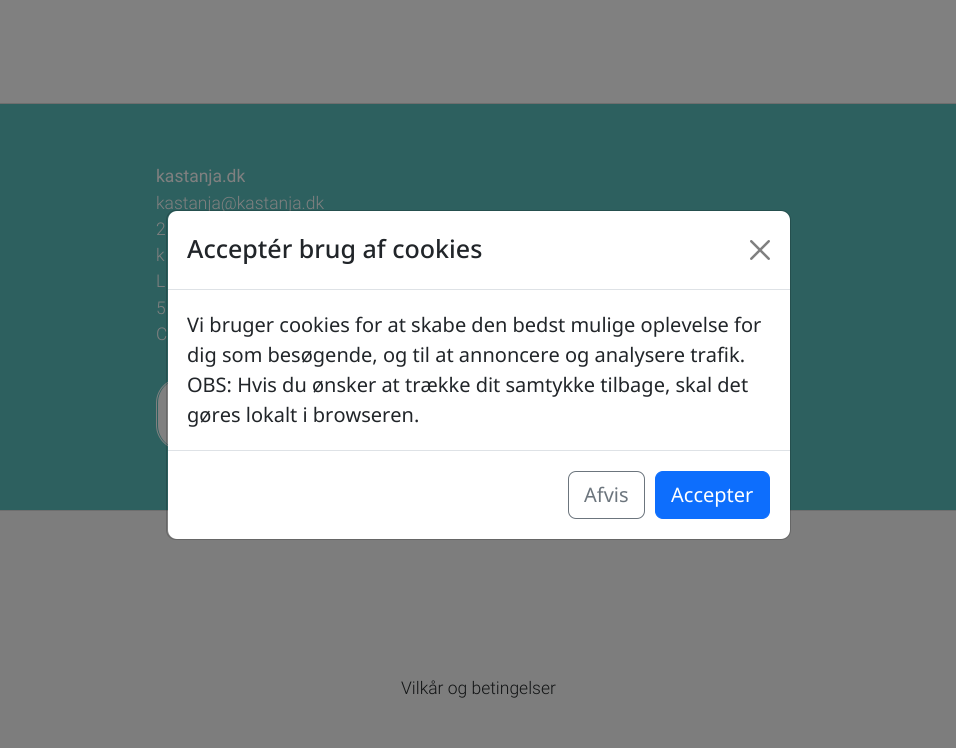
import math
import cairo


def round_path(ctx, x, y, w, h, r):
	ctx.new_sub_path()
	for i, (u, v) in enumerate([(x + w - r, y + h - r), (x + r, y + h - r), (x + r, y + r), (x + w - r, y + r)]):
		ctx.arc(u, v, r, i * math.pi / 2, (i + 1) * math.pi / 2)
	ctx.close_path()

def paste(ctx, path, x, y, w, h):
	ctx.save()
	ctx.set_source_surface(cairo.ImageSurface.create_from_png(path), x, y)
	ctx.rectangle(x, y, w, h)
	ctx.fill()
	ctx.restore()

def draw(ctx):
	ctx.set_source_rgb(0.502, 0.502, 0.502)
	ctx.paint()
	ctx.set_source_rgb(0.431, 0.431, 0.431)
	ctx.rectangle(0, 103, 956, 1)
	ctx.fill()
	ctx.set_source_rgb(0.176, 0.376, 0.373)
	ctx.rectangle(0, 104, 956, 406)
	ctx.fill()
	ctx.select_font_face('Roboto')
	ctx.set_font_size(17.5)
	ctx.set_source_rgb(0.502, 0.502, 0.502)
	ctx.move_to(156, 182)
	ctx.show_text('kastanja.dk')
	ctx.select_font_face('Roboto Light')
	for x, y, s in [
		(156, 209, 'kastanja@kastanja.dk'),
		(156, 235, '2'),
		(156, 261, 'k'),
		(156, 287, 'L'),
		(156, 314, '5'),
		(156, 340, 'C'),
	]:
		ctx.move_to(x, y)
		ctx.show_text(s)
	ctx.new_path()
	ctx.move_to(182, 379)
	ctx.line_to(474, 379)
	ctx.line_to(474, 449)
	ctx.line_to(182, 449)
	ctx.curve_to(168.5, 449, 158, 438.5, 158, 425)
	ctx.line_to(158, 403)
	ctx.curve_to(158, 389.5, 168.5, 379, 182, 379)
	ctx.close_path()
	ctx.fill()
	ctx.new_path()
	ctx.move_to(181, 378.5)
	ctx.line_to(474.5, 378.5)
	ctx.line_to(474.5, 449.5)
	ctx.line_to(181, 449.5)
	ctx.curve_to(167.5, 449.5, 156.5, 438.5, 156.5, 425)
	ctx.line_to(156.5, 403)
	ctx.curve_to(156.5, 389.5, 167.5, 378.5, 181, 378.5)
	ctx.close_path()
	ctx.set_line_width(1)
	ctx.stroke()
	ctx.set_source_rgb(0.49, 0.49, 0.49)
	ctx.rectangle(0, 511, 956, 237)
	ctx.fill()
	ctx.set_source_rgb(0.431, 0.431, 0.431)
	ctx.rectangle(0, 510, 956, 1)
	ctx.fill()
	ctx.set_source_rgb(0.067, 0.075, 0.082)
	ctx.move_to(401, 694)
	ctx.show_text('Vilkår og betingelser')
	ctx.set_source_rgb(1, 1, 1)
	round_path(ctx, 168, 211, 622, 328, 9)
	ctx.fill()
	round_path(ctx, 166.5, 210.5, 624, 329, 9.5)
	ctx.set_source_rgba(0, 0, 0, 0.18)
	ctx.stroke()
	ctx.set_source_rgb(0.871, 0.886, 0.902)
	ctx.rectangle(168, 289, 622, 1)
	ctx.fill()
	ctx.select_font_face('Noto Sans Medium')
	ctx.set_font_size(25)
	ctx.set_source_rgb(0.129, 0.145, 0.161)
	ctx.move_to(187, 258)
	ctx.show_text('Acceptér brug af cookies')
	paste(ctx, 'media/1.png', 750, 240, 20, 20)
	ctx.select_font_face('Noto Sans')
	ctx.set_font_size(20)
	for x, y, s in [
		(187, 332, 'Vi bruger cookies for at skabe den bedst mulige oplevelse for'),
		(187, 362, 'dig som besøgende, og til at annoncere og analysere trafik.'),
		(187, 392, 'OBS: Hvis du ønsker at trække dit samtykke tilbage, skal det'),
		(187, 422, 'gøres lokalt i browseren.'),
	]:
		ctx.move_to(x, y)
		ctx.show_text(s)
	ctx.set_source_rgb(0.871, 0.886, 0.902)
	ctx.rectangle(168, 450, 622, 1)
	ctx.fill()
	round_path(ctx, 568.5, 471.5, 76, 47, 7.5)
	ctx.set_source_rgb(0.424, 0.459, 0.49)
	ctx.stroke()
	ctx.move_to(584, 502)
	ctx.show_text('Afvis')
	ctx.set_source_rgb(0.051, 0.431, 0.992)
	round_path(ctx, 655.5, 471.5, 114, 47, 7.5)
	ctx.fill_preserve()
	ctx.stroke()
	ctx.set_source_rgb(1, 1, 1)
	ctx.move_to(671, 502)
	ctx.show_text('Accepter')


surface = cairo.ImageSurface(cairo.FORMAT_RGB24, 956, 748)
ctx = cairo.Context(surface)
options = cairo.FontOptions()
options.set_hint_metrics(cairo.HINT_METRICS_OFF)
options.set_hint_style(cairo.HINT_STYLE_NONE)
ctx.set_font_options(options)
ctx.set_miter_limit(4)
draw(ctx)
surface.write_to_png('image.png')
